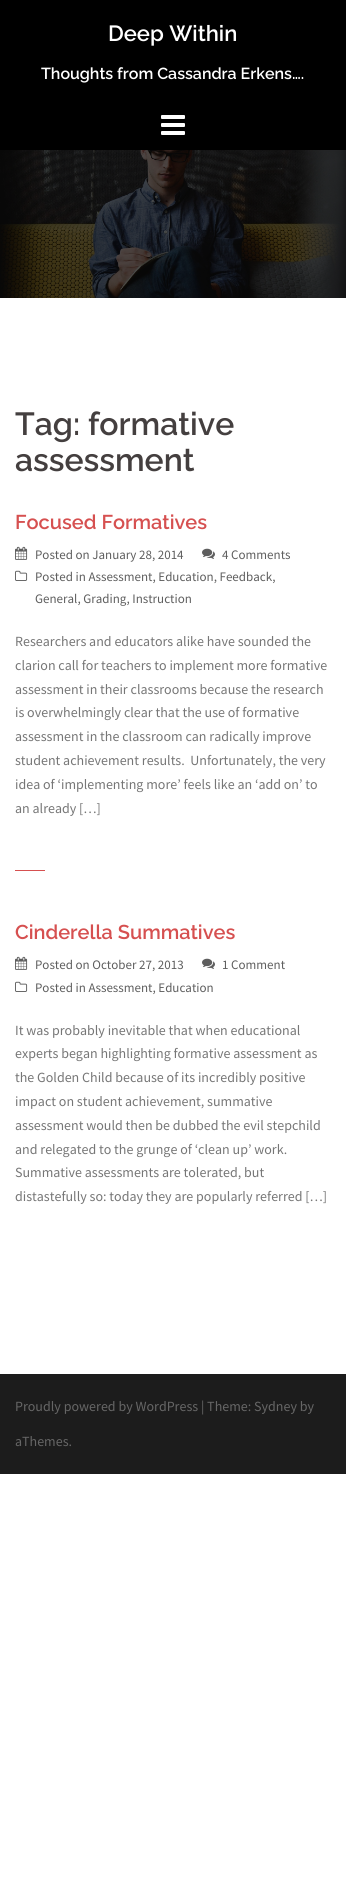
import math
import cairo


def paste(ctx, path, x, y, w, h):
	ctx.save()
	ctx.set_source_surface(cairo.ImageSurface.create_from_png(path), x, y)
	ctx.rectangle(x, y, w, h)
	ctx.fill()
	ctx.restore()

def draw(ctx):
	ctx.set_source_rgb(1, 1, 1)
	ctx.paint()
	ctx.set_source_rgb(0, 0, 0)
	ctx.rectangle(0, 0, 346, 150)
	ctx.fill()
	ctx.select_font_face('Raleway SemiBold')
	ctx.set_font_size(22)
	ctx.set_source_rgb(1, 1, 1)
	ctx.move_to(108, 41)
	ctx.show_text('Deep Within')
	ctx.set_font_size(16)
	ctx.move_to(41, 79)
	ctx.show_text('Thoughts from Cassandra Erkens….')
	paste(ctx, 'media/1.png', 161, 115, 24, 20)
	paste(ctx, 'media/2.png', 0, 150, 346, 148)
	ctx.set_font_size(32)
	ctx.set_source_rgb(0.267, 0.247, 0.247)
	ctx.move_to(15, 435)
	ctx.show_text('Tag: formative')
	ctx.move_to(15, 471)
	ctx.show_text('assessment')
	ctx.set_font_size(20)
	ctx.set_source_rgb(0.839, 0.314, 0.314)
	ctx.move_to(15, 529)
	ctx.show_text('Focused Formatives')
	paste(ctx, 'media/3.png', 15, 546, 13, 14)
	ctx.select_font_face('Source Sans Pro')
	ctx.set_font_size(13)
	ctx.set_source_rgb(0.369, 0.369, 0.369)
	ctx.move_to(35, 559)
	ctx.show_text('Posted on January 28, 2014')
	paste(ctx, 'media/4.png', 202, 548, 13, 11)
	ctx.move_to(222, 559)
	ctx.show_text('4 Comments')
	paste(ctx, 'media/5.png', 15, 570, 13, 11)
	ctx.move_to(35, 581)
	ctx.show_text('Posted in Assessment, Education, Feedback,')
	ctx.move_to(35, 603)
	ctx.show_text('General, Grading, Instruction')
	ctx.set_font_size(14)
	ctx.set_source_rgb(0.463, 0.463, 0.463)
	for x, y, s in [
		(15, 646, 'Researchers and educators alike have sounded the'),
		(15, 670, 'clarion call for teachers to implement more formative'),
		(15, 694, 'assessment in their classrooms because the research'),
		(15, 717, 'is overwhelmingly clear that the use of formative'),
		(15, 741, 'assessment in the classroom can radically improve'),
		(15, 765, 'student achievement results.  Unfortunately, the very'),
		(15, 789, 'idea of ‘implementing more’ feels like an ‘add on’ to'),
		(15, 813, 'an already […]'),
	]:
		ctx.move_to(x, y)
		ctx.show_text(s)
	ctx.set_source_rgb(0.839, 0.314, 0.314)
	ctx.rectangle(15, 870, 30, 1)
	ctx.fill()
	ctx.select_font_face('Raleway SemiBold')
	ctx.set_font_size(20)
	ctx.move_to(15, 939)
	ctx.show_text('Cinderella Summatives')
	paste(ctx, 'media/3.png', 15, 956, 13, 14)
	ctx.select_font_face('Source Sans Pro')
	ctx.set_font_size(13)
	ctx.set_source_rgb(0.369, 0.369, 0.369)
	ctx.move_to(35, 969)
	ctx.show_text('Posted on October 27, 2013')
	paste(ctx, 'media/4.png', 202, 958, 13, 11)
	ctx.move_to(222, 969)
	ctx.show_text('1 Comment')
	paste(ctx, 'media/5.png', 15, 981, 13, 11)
	ctx.move_to(35, 992)
	ctx.show_text('Posted in Assessment, Education')
	ctx.set_font_size(14)
	ctx.set_source_rgb(0.463, 0.463, 0.463)
	for x, y, s in [
		(15, 1035, 'It was probably inevitable that when educational'),
		(15, 1058, 'experts began highlighting formative assessment as'),
		(15, 1082, 'the Golden Child because of its incredibly positive'),
		(15, 1106, 'impact on student achievement, summative'),
		(15, 1130, 'assessment would then be dubbed the evil stepchild'),
		(15, 1154, 'and relegated to the grunge of ‘clean up’ work.'),
		(15, 1177, 'Summative assessments are tolerated, but'),
		(15, 1201, 'distastefully so: today they are popularly referred […]'),
	]:
		ctx.move_to(x, y)
		ctx.show_text(s)
	ctx.set_source_rgb(0.11, 0.11, 0.11)
	ctx.rectangle(0, 1374, 346, 100)
	ctx.fill()
	ctx.set_source_rgb(0.4, 0.4, 0.4)
	ctx.move_to(15, 1411)
	ctx.show_text('Proudly powered by WordPress | Theme: Sydney by')
	ctx.move_to(15, 1446)
	ctx.show_text('aThemes.')


surface = cairo.ImageSurface(cairo.FORMAT_RGB24, 346, 1883)
ctx = cairo.Context(surface)
options = cairo.FontOptions()
options.set_hint_metrics(cairo.HINT_METRICS_OFF)
options.set_hint_style(cairo.HINT_STYLE_NONE)
ctx.set_font_options(options)
ctx.set_miter_limit(4)
draw(ctx)
surface.write_to_png('image.png')
